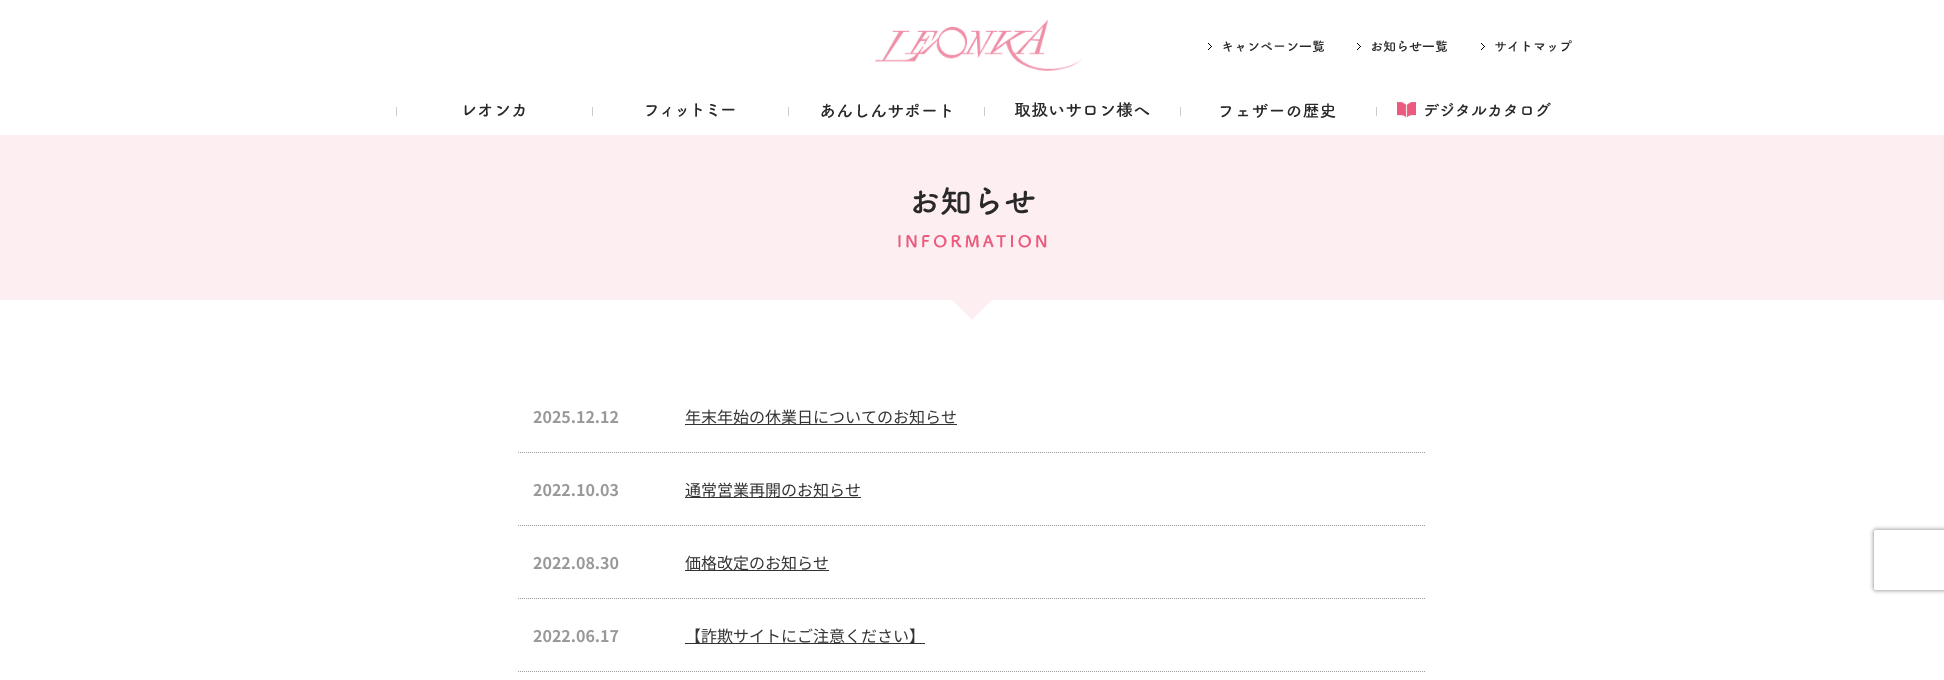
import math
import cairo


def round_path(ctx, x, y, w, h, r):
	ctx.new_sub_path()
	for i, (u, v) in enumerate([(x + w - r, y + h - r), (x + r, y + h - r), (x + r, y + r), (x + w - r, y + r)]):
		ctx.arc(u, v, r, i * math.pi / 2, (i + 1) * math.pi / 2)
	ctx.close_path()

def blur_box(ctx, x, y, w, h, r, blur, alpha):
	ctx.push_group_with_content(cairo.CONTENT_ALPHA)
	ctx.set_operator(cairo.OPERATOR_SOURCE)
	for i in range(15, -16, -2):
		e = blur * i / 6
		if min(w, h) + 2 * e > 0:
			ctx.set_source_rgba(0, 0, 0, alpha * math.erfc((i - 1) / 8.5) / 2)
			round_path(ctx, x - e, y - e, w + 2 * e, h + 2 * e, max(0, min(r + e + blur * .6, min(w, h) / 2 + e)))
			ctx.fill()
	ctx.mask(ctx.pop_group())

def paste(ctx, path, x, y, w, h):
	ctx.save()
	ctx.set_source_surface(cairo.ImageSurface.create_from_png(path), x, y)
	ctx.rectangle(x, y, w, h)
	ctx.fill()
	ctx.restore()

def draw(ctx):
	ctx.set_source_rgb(1, 1, 1)
	ctx.paint()
	paste(ctx, 'media/1.png', 875, 19, 207, 52)
	paste(ctx, 'media/2.png', 1208, 40, 116, 12)
	paste(ctx, 'media/3.png', 1357, 40, 90, 12)
	paste(ctx, 'media/4.png', 1481, 40, 91, 12)
	ctx.set_source_rgb(0.8, 0.8, 0.8)
	ctx.rectangle(396, 107, 1, 9)
	ctx.fill()
	paste(ctx, 'media/5.png', 464, 103, 61, 14)
	ctx.rectangle(592, 107, 1, 9)
	ctx.fill()
	paste(ctx, 'media/6.png', 646, 103, 89, 14)
	ctx.rectangle(788, 107, 1, 9)
	ctx.fill()
	paste(ctx, 'media/7.png', 821, 103, 130, 15)
	ctx.rectangle(984, 107, 1, 9)
	ctx.fill()
	paste(ctx, 'media/8.png', 1015, 102, 135, 16)
	ctx.rectangle(1180, 107, 1, 9)
	ctx.fill()
	paste(ctx, 'media/9.png', 1220, 103, 116, 15)
	ctx.rectangle(1376, 107, 1, 9)
	ctx.fill()
	paste(ctx, 'media/10.png', 1397, 102, 154, 16)
	ctx.set_source_rgb(0.992, 0.933, 0.949)
	ctx.rectangle(0, 135, 1944, 165)
	ctx.fill()
	paste(ctx, 'media/11.png', 898, 187, 149, 61)
	ctx.new_path()
	ctx.move_to(952, 300)
	ctx.line_to(992, 300)
	ctx.line_to(972, 320)
	ctx.close_path()
	ctx.fill()
	ctx.new_path()
	ctx.move_to(518, 452.5)
	ctx.line_to(1426, 452.5)
	ctx.set_source_rgb(0.608, 0.608, 0.608)
	ctx.set_line_width(1)
	ctx.set_dash([1, 1])
	ctx.stroke()
	ctx.select_font_face('Noto Sans JP', cairo.FONT_SLANT_NORMAL, cairo.FONT_WEIGHT_BOLD)
	ctx.set_font_size(16)
	ctx.set_source_rgb(0.6, 0.6, 0.6)
	ctx.move_to(533, 423)
	ctx.show_text('2025.12.12')
	ctx.set_source_rgb(0.2, 0.2, 0.2)
	ctx.rectangle(685, 424, 272, 1)
	ctx.fill()
	ctx.select_font_face('Noto Sans JP')
	ctx.move_to(685, 423)
	ctx.show_text('年末年始の休業日についてのお知らせ')
	ctx.new_path()
	ctx.move_to(518, 525.5)
	ctx.line_to(1426, 525.5)
	ctx.set_source_rgb(0.608, 0.608, 0.608)
	ctx.stroke()
	ctx.select_font_face('Noto Sans JP', cairo.FONT_SLANT_NORMAL, cairo.FONT_WEIGHT_BOLD)
	ctx.set_source_rgb(0.6, 0.6, 0.6)
	ctx.move_to(533, 496)
	ctx.show_text('2022.10.03')
	ctx.set_source_rgb(0.2, 0.2, 0.2)
	ctx.rectangle(685, 497, 176, 1)
	ctx.fill()
	ctx.select_font_face('Noto Sans JP')
	ctx.move_to(685, 496)
	ctx.show_text('通常営業再開のお知らせ')
	ctx.new_path()
	ctx.move_to(518, 598.5)
	ctx.line_to(1426, 598.5)
	ctx.set_source_rgb(0.608, 0.608, 0.608)
	ctx.stroke()
	ctx.select_font_face('Noto Sans JP', cairo.FONT_SLANT_NORMAL, cairo.FONT_WEIGHT_BOLD)
	ctx.set_source_rgb(0.6, 0.6, 0.6)
	ctx.move_to(533, 569)
	ctx.show_text('2022.08.30')
	ctx.set_source_rgb(0.2, 0.2, 0.2)
	ctx.rectangle(685, 570, 144, 1)
	ctx.fill()
	ctx.select_font_face('Noto Sans JP')
	ctx.move_to(685, 569)
	ctx.show_text('価格改定のお知らせ')
	ctx.new_path()
	ctx.move_to(518, 671.5)
	ctx.line_to(1426, 671.5)
	ctx.set_source_rgb(0.608, 0.608, 0.608)
	ctx.stroke()
	ctx.select_font_face('Noto Sans JP', cairo.FONT_SLANT_NORMAL, cairo.FONT_WEIGHT_BOLD)
	ctx.set_source_rgb(0.6, 0.6, 0.6)
	ctx.move_to(533, 642)
	ctx.show_text('2022.06.17')
	ctx.set_source_rgb(0.2, 0.2, 0.2)
	ctx.rectangle(685, 643, 240, 1)
	ctx.fill()
	ctx.select_font_face('Noto Sans JP')
	ctx.move_to(685, 642)
	ctx.show_text('【詐欺サイトにご注意ください】')
	ctx.save()
	ctx.set_fill_rule(cairo.FILL_RULE_EVEN_ODD)
	ctx.new_path()
	ctx.move_to(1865, 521)
	ctx.line_to(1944, 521)
	ctx.line_to(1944, 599)
	ctx.line_to(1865, 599)
	ctx.close_path()
	ctx.move_to(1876, 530)
	ctx.line_to(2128, 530)
	ctx.curve_to(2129, 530, 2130, 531, 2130, 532)
	ctx.line_to(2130, 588)
	ctx.curve_to(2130, 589, 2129, 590, 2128, 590)
	ctx.line_to(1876, 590)
	ctx.curve_to(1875, 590, 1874, 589, 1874, 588)
	ctx.line_to(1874, 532)
	ctx.curve_to(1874, 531, 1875, 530, 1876, 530)
	ctx.close_path()
	ctx.clip()
	ctx.set_source_rgb(0.502, 0.502, 0.502)
	blur_box(ctx, 1874, 530, 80, 60, 2, 2.5, 1)
	ctx.restore()


surface = cairo.ImageSurface(cairo.FORMAT_RGB24, 1944, 680)
ctx = cairo.Context(surface)
options = cairo.FontOptions()
options.set_hint_metrics(cairo.HINT_METRICS_OFF)
options.set_hint_style(cairo.HINT_STYLE_NONE)
ctx.set_font_options(options)
ctx.set_miter_limit(4)
draw(ctx)
surface.write_to_png('image.png')
